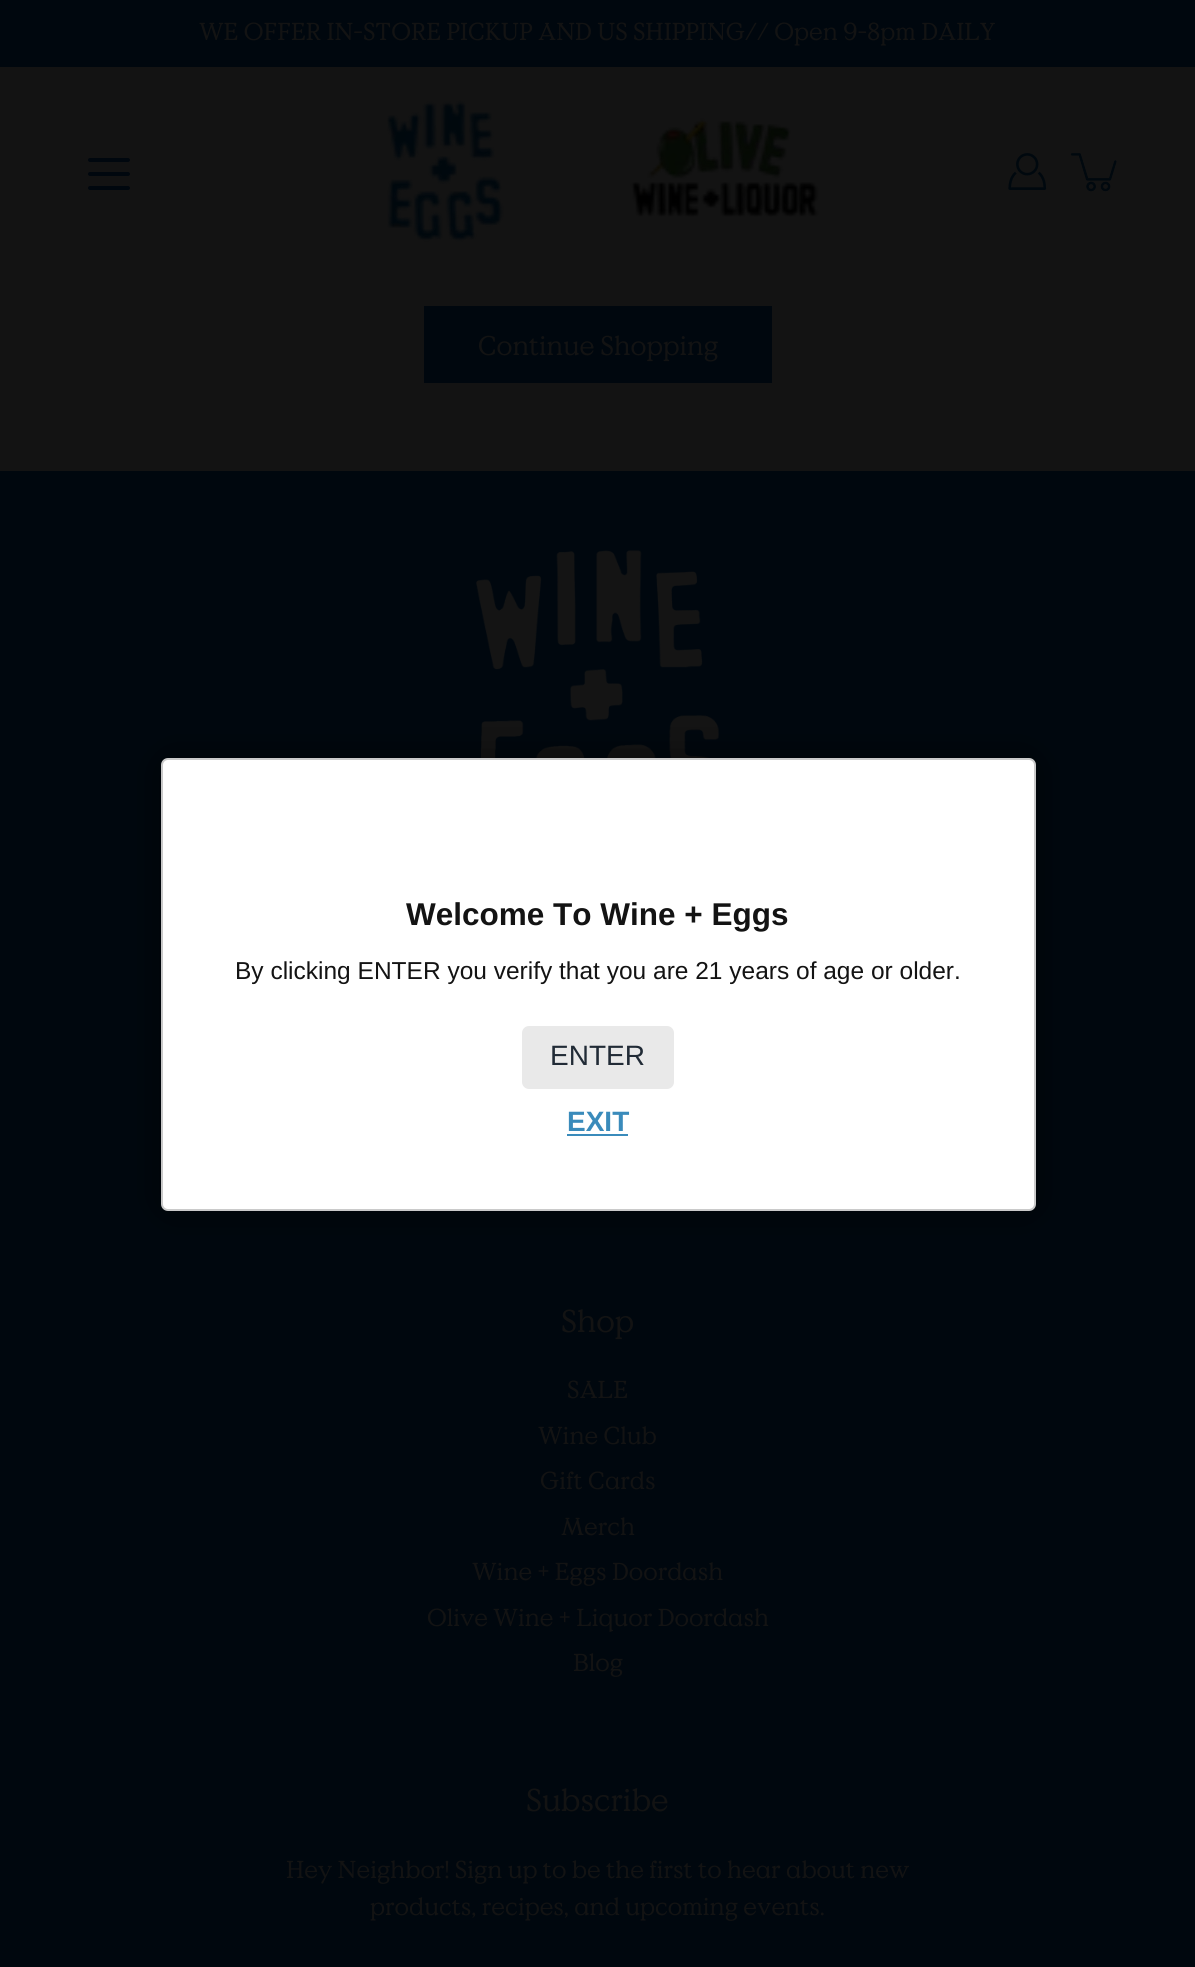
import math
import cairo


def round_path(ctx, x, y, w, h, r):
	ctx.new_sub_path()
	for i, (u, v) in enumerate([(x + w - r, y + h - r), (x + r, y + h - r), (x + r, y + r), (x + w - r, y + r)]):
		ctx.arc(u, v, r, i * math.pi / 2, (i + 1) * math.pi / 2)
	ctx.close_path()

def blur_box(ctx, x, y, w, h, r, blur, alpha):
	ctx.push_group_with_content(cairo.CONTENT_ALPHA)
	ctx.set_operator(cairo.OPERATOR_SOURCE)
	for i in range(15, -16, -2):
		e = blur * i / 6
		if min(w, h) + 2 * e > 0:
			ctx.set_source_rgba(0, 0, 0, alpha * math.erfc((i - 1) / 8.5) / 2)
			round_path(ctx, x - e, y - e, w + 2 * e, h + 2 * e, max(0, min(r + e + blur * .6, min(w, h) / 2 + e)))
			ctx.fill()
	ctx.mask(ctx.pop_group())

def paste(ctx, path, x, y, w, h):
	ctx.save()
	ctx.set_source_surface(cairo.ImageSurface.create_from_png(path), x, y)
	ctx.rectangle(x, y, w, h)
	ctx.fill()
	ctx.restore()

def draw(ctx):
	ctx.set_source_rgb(0.078, 0.078, 0.078)
	ctx.paint()
	ctx.set_source_rgb(0, 0.031, 0.055)
	ctx.rectangle(0, 0, 1195, 67)
	ctx.fill()
	ctx.select_font_face('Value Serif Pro')
	ctx.set_font_size(24.5)
	ctx.set_source_rgb(0.078, 0.078, 0.078)
	ctx.move_to(199, 40)
	ctx.show_text('WE OFFER IN-STORE PICKUP AND US SHIPPING// Open 9-8pm DAILY')
	paste(ctx, 'media/1.png', 387, 100, 432, 143)
	ctx.set_source_rgb(0, 0.031, 0.055)
	round_path(ctx, 88, 172, 42, 4, 2)
	ctx.fill()
	round_path(ctx, 88, 158, 42, 4, 2)
	ctx.fill()
	round_path(ctx, 88, 186, 42, 4, 2)
	ctx.fill()
	paste(ctx, 'media/2.png', 1008, 153, 39, 37)
	paste(ctx, 'media/3.png', 1070, 153, 47, 39)
	ctx.rectangle(424, 306, 348, 77)
	ctx.fill()
	ctx.set_font_size(27)
	ctx.set_source_rgb(0.078, 0.078, 0.078)
	ctx.move_to(478, 355)
	ctx.show_text('Continue Shopping')
	ctx.set_source_rgb(0, 0.031, 0.055)
	ctx.rectangle(0, 471, 1195, 1496)
	ctx.fill()
	paste(ctx, 'media/4.png', 476, 550, 244, 208)
	ctx.set_font_size(31.5)
	ctx.set_source_rgb(0.078, 0.078, 0.078)
	ctx.move_to(561, 1332)
	ctx.show_text('Shop')
	ctx.set_font_size(24.5)
	for x, y, s in [
		(567, 1398, 'SALE'),
		(538, 1444, 'Wine Club'),
		(540, 1489, 'Gift Cards'),
		(561, 1535, 'Merch'),
		(472, 1580, 'Wine + Eggs Doordash'),
		(427, 1626, 'Olive Wine + Liquor Doordash'),
		(573, 1671, 'Blog'),
	]:
		ctx.move_to(x, y)
		ctx.show_text(s)
	ctx.set_font_size(31.5)
	ctx.move_to(526, 1811)
	ctx.show_text('Subscribe')
	ctx.set_font_size(24.5)
	ctx.move_to(286, 1878)
	ctx.show_text('Hey Neighbor! Sign up to be the first to hear about new')
	ctx.move_to(370, 1915)
	ctx.show_text('products, recipes, and upcoming events.')
	ctx.set_source_rgb(0, 0, 0)
	blur_box(ctx, 170, 767, 857, 435, 0, 22, 0.75)
	ctx.set_source_rgb(1, 1, 1)
	round_path(ctx, 162, 759, 873, 451, 6)
	ctx.fill_preserve()
	ctx.set_source_rgb(0.792, 0.792, 0.792)
	ctx.stroke()
	ctx.select_font_face('Liberation Sans', cairo.FONT_SLANT_NORMAL, cairo.FONT_WEIGHT_BOLD)
	ctx.set_font_size(31.5)
	ctx.set_source_rgb(0.078, 0.078, 0.078)
	ctx.move_to(406, 925)
	ctx.show_text('Welcome To Wine + Eggs')
	ctx.select_font_face('Liberation Sans')
	ctx.set_font_size(24.5)
	ctx.move_to(235, 979)
	ctx.show_text('By clicking ENTER you verify that you are 21 years of age or older.')
	ctx.set_source_rgb(0.914, 0.914, 0.914)
	round_path(ctx, 522, 1026, 152, 63, 7)
	ctx.fill()
	ctx.set_font_size(28)
	ctx.set_source_rgb(0.129, 0.169, 0.212)
	ctx.move_to(550, 1065)
	ctx.show_text('ENTER')
	ctx.select_font_face('Liberation Sans', cairo.FONT_SLANT_NORMAL, cairo.FONT_WEIGHT_BOLD)
	ctx.set_source_rgb(0.227, 0.545, 0.733)
	ctx.move_to(567, 1131)
	ctx.show_text('EXIT')
	ctx.rectangle(567, 1134, 61, 2)
	ctx.fill()


surface = cairo.ImageSurface(cairo.FORMAT_RGB24, 1195, 1967)
ctx = cairo.Context(surface)
options = cairo.FontOptions()
options.set_hint_metrics(cairo.HINT_METRICS_OFF)
options.set_hint_style(cairo.HINT_STYLE_NONE)
ctx.set_font_options(options)
ctx.set_miter_limit(4)
draw(ctx)
surface.write_to_png('image.png')
